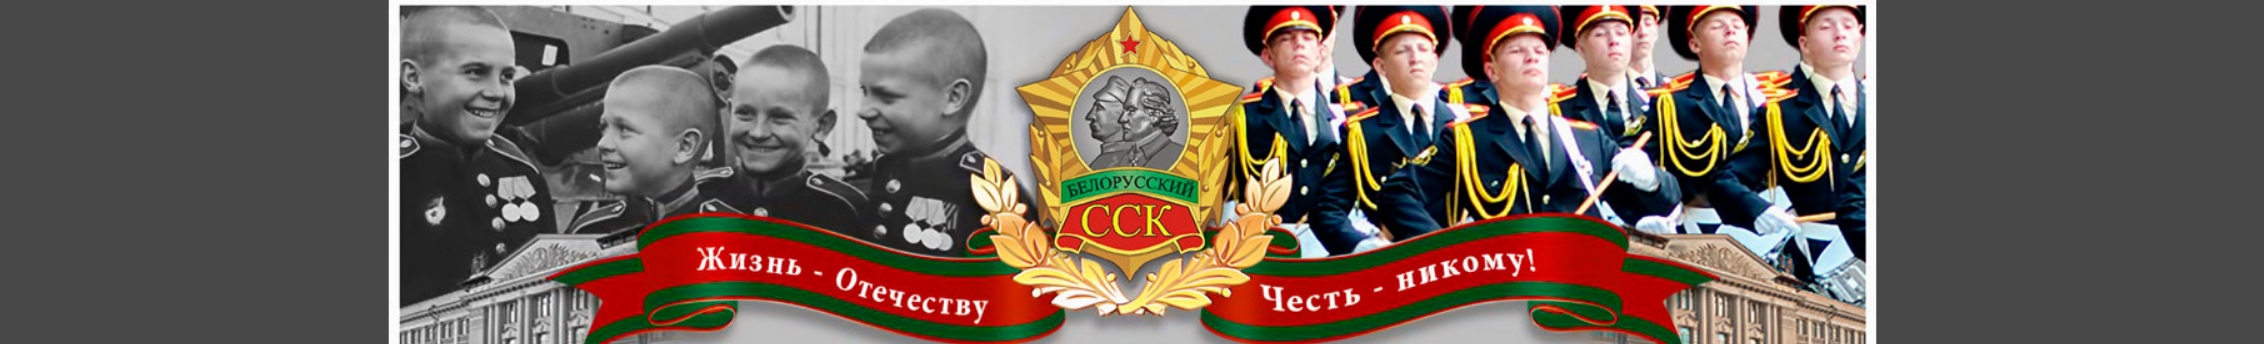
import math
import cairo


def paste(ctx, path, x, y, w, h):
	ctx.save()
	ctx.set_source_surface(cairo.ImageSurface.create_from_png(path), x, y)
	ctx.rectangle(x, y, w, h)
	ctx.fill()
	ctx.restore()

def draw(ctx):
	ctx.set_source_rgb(0.282, 0.282, 0.282)
	ctx.paint()
	paste(ctx, 'media/1.png', 388, 0, 1489, 344)


surface = cairo.ImageSurface(cairo.FORMAT_RGB24, 2264, 344)
ctx = cairo.Context(surface)
options = cairo.FontOptions()
options.set_hint_metrics(cairo.HINT_METRICS_OFF)
options.set_hint_style(cairo.HINT_STYLE_NONE)
ctx.set_font_options(options)
ctx.set_miter_limit(4)
draw(ctx)
surface.write_to_png('image.png')
